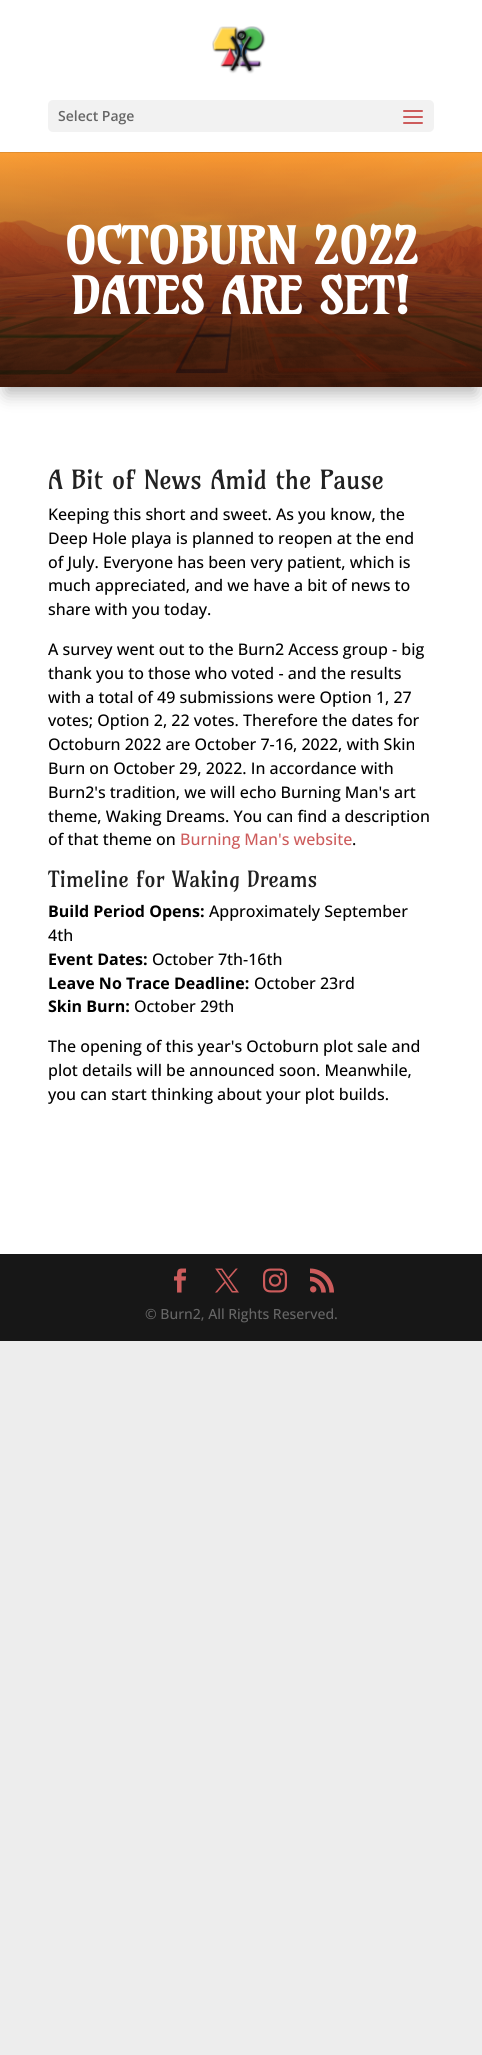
import math
import cairo


def round_path(ctx, x, y, w, h, r):
	ctx.new_sub_path()
	for i, (u, v) in enumerate([(x + w - r, y + h - r), (x + r, y + h - r), (x + r, y + r), (x + w - r, y + r)]):
		ctx.arc(u, v, r, i * math.pi / 2, (i + 1) * math.pi / 2)
	ctx.close_path()

def blur_box(ctx, x, y, w, h, r, blur, alpha):
	ctx.push_group_with_content(cairo.CONTENT_ALPHA)
	ctx.set_operator(cairo.OPERATOR_SOURCE)
	for i in range(15, -16, -2):
		e = blur * i / 6
		if min(w, h) + 2 * e > 0:
			ctx.set_source_rgba(0, 0, 0, alpha * math.erfc((i - 1) / 8.5) / 2)
			round_path(ctx, x - e, y - e, w + 2 * e, h + 2 * e, max(0, min(r + e + blur * .6, min(w, h) / 2 + e)))
			ctx.fill()
	ctx.mask(ctx.pop_group())

def paste(ctx, path, x, y, w, h):
	ctx.save()
	ctx.set_source_surface(cairo.ImageSurface.create_from_png(path), x, y)
	ctx.rectangle(x, y, w, h)
	ctx.fill()
	ctx.restore()

def draw(ctx):
	ctx.set_source_rgb(0.929, 0.929, 0.929)
	ctx.paint()
	ctx.set_source_rgb(1, 1, 1)
	ctx.rectangle(0, 387, 482, 867)
	ctx.fill()
	ctx.set_source_rgb(0, 0, 0)
	blur_box(ctx, 6, 169, 470, 224, 0, 9, 0.3)
	paste(ctx, 'media/3.png', 0, 152, 482, 235)
	ctx.set_source_rgba(0, 0, 0, 0.1)
	ctx.rectangle(0, 152, 482, 1)
	ctx.fill()
	ctx.set_source_rgb(1, 1, 1)
	ctx.rectangle(0, 0, 482, 152)
	ctx.fill()
	paste(ctx, 'media/1.png', 212, 26, 54, 48)
	ctx.set_source_rgb(0.949, 0.949, 0.949)
	round_path(ctx, 48, 100, 386, 32, 5)
	ctx.fill()
	ctx.select_font_face('Open Sans SemiBold')
	ctx.set_font_size(14)
	ctx.set_source_rgb(0.4, 0.4, 0.4)
	ctx.move_to(58, 121)
	ctx.show_text('Select Page')
	paste(ctx, 'media/2.png', 403, 110, 20, 14)
	ctx.select_font_face('Amarante', cairo.FONT_SLANT_NORMAL, cairo.FONT_WEIGHT_BOLD)
	ctx.set_font_size(50)
	ctx.set_source_rgb(1, 1, 1)
	ctx.move_to(64, 264)
	ctx.show_text('OCTOBURN 2022')
	ctx.move_to(71, 314)
	ctx.show_text('DATES ARE SET!')
	ctx.select_font_face('Amarante')
	ctx.set_font_size(26)
	ctx.set_source_rgb(0.133, 0.133, 0.133)
	ctx.move_to(48, 489)
	ctx.show_text('A Bit of News Amid the Pause')
	ctx.select_font_face('Open Sans Medium')
	ctx.set_font_size(16)
	ctx.set_source_rgb(0, 0, 0)
	for x, y, s in [
		(48, 520, 'Keeping this short and sweet. As you know, the'),
		(48, 544, 'Deep Hole playa is planned to reopen at the end'),
		(48, 568, 'of July. Everyone has been very patient, which is'),
		(48, 591, 'much appreciated, and we have a bit of news to'),
		(48, 615, 'share with you today.'),
		(48, 655, 'A survey went out to the Burn2 Access group - big'),
		(48, 679, 'thank you to those who voted - and the results'),
		(48, 703, 'with a total of 49 submissions were Option 1, 27'),
		(48, 726, 'votes; Option 2, 22 votes. Therefore the dates for'),
		(48, 750, 'Octoburn 2022 are October 7-16, 2022, with Skin'),
		(48, 774, 'Burn on October 29, 2022. In accordance with'),
		(48, 798, 'Burn2\'s tradition, we will echo Burning Man\'s art'),
		(48, 822, 'theme, Waking Dreams. You can find a description'),
		(48, 845, 'of that theme on'),
	]:
		ctx.move_to(x, y)
		ctx.show_text(s)
	ctx.set_source_rgb(0.804, 0.361, 0.361)
	ctx.move_to(180, 845)
	ctx.show_text('Burning Man\'s website')
	ctx.set_source_rgb(0, 0, 0)
	ctx.move_to(352, 845)
	ctx.show_text('.')
	ctx.select_font_face('Amarante')
	ctx.set_font_size(22)
	ctx.set_source_rgb(0.133, 0.133, 0.133)
	ctx.move_to(48, 887)
	ctx.show_text('Timeline for Waking Dreams')
	ctx.select_font_face('Open Sans', cairo.FONT_SLANT_NORMAL, cairo.FONT_WEIGHT_BOLD)
	ctx.set_font_size(16)
	ctx.set_source_rgb(0, 0, 0)
	ctx.move_to(48, 917)
	ctx.show_text('Build Period Opens:')
	ctx.select_font_face('Open Sans Medium')
	ctx.move_to(209, 917)
	ctx.show_text('Approximately September')
	ctx.move_to(48, 941)
	ctx.show_text('4th')
	ctx.select_font_face('Open Sans', cairo.FONT_SLANT_NORMAL, cairo.FONT_WEIGHT_BOLD)
	ctx.move_to(48, 965)
	ctx.show_text('Event Dates:')
	ctx.select_font_face('Open Sans Medium')
	ctx.move_to(152, 965)
	ctx.show_text('October 7th-16th')
	ctx.select_font_face('Open Sans', cairo.FONT_SLANT_NORMAL, cairo.FONT_WEIGHT_BOLD)
	ctx.move_to(48, 989)
	ctx.show_text('Leave No Trace Deadline:')
	ctx.select_font_face('Open Sans Medium')
	ctx.move_to(254, 989)
	ctx.show_text('October 23rd')
	ctx.select_font_face('Open Sans', cairo.FONT_SLANT_NORMAL, cairo.FONT_WEIGHT_BOLD)
	ctx.move_to(48, 1012)
	ctx.show_text('Skin Burn:')
	ctx.select_font_face('Open Sans Medium')
	for x, y, s in [
		(134, 1012, 'October 29th'),
		(48, 1052, 'The opening of this year\'s Octoburn plot sale and'),
		(48, 1076, 'plot details will be announced soon. Meanwhile,'),
		(48, 1100, 'you can start thinking about your plot builds.'),
	]:
		ctx.move_to(x, y)
		ctx.show_text(s)
	ctx.set_source_rgb(0.09, 0.09, 0.09)
	ctx.rectangle(0, 1254, 482, 87)
	ctx.fill()
	paste(ctx, 'media/4.png', 174, 1268, 13, 25)
	paste(ctx, 'media/5.png', 215, 1268, 24, 25)
	paste(ctx, 'media/6.png', 263, 1268, 24, 25)
	paste(ctx, 'media/7.png', 310, 1268, 24, 25)
	ctx.set_font_size(14)
	ctx.set_source_rgb(0.4, 0.4, 0.4)
	ctx.move_to(145, 1319)
	ctx.show_text('© Burn2, All Rights Reserved.')


surface = cairo.ImageSurface(cairo.FORMAT_RGB24, 482, 2055)
ctx = cairo.Context(surface)
options = cairo.FontOptions()
options.set_hint_metrics(cairo.HINT_METRICS_OFF)
options.set_hint_style(cairo.HINT_STYLE_NONE)
ctx.set_font_options(options)
ctx.set_miter_limit(4)
draw(ctx)
surface.write_to_png('image.png')
